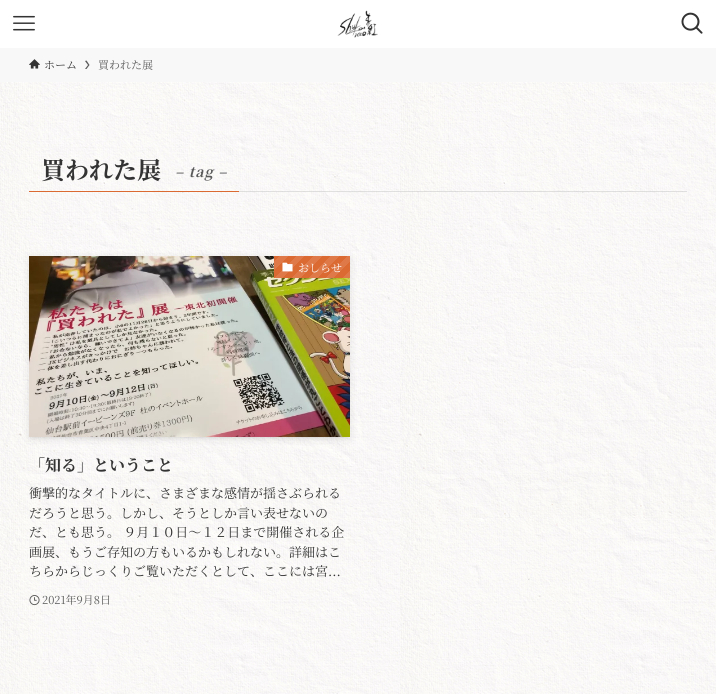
import math
import cairo


def write_spaced(ctx, x, y, s, letter, word):
	ctx.move_to(x, y)
	for ch in s:
		ctx.show_text(ch)
		ctx.rel_move_to(letter + word * (ch == ' '), 0)

def round_path(ctx, x, y, w, h, r):
	ctx.new_sub_path()
	for i, (u, v) in enumerate([(x + w - r, y + h - r), (x + r, y + h - r), (x + r, y + r), (x + w - r, y + r)]):
		ctx.arc(u, v, r, i * math.pi / 2, (i + 1) * math.pi / 2)
	ctx.close_path()

def blur_box(ctx, x, y, w, h, r, blur, alpha):
	ctx.push_group_with_content(cairo.CONTENT_ALPHA)
	ctx.set_operator(cairo.OPERATOR_SOURCE)
	for i in range(15, -16, -2):
		e = blur * i / 6
		if min(w, h) + 2 * e > 0:
			ctx.set_source_rgba(0, 0, 0, alpha * math.erfc((i - 1) / 8.5) / 2)
			round_path(ctx, x - e, y - e, w + 2 * e, h + 2 * e, max(0, min(r + e + blur * .6, min(w, h) / 2 + e)))
			ctx.fill()
	ctx.mask(ctx.pop_group())

def paste(ctx, path, x, y, w, h):
	ctx.save()
	ctx.set_source_surface(cairo.ImageSurface.create_from_png(path), x, y)
	ctx.rectangle(x, y, w, h)
	ctx.fill()
	ctx.restore()

def draw(ctx):
	ctx.set_source_rgb(1, 1, 1)
	ctx.paint()
	paste(ctx, 'media/1.png', 0, 82, 716, 612)
	paste(ctx, 'media/2.png', 13, 15, 22, 16)
	paste(ctx, 'media/3.png', 337, 10, 41, 28)
	paste(ctx, 'media/4.png', 681, 12, 22, 22)
	ctx.set_source_rgb(0.969, 0.969, 0.969)
	ctx.rectangle(0, 48, 716, 34)
	ctx.fill()
	paste(ctx, 'media/5.png', 29, 59, 11, 10)
	ctx.select_font_face('Noto Serif JP')
	ctx.set_font_size(11)
	ctx.set_source_rgb(0.2, 0.2, 0.2)
	ctx.move_to(44, 69)
	ctx.show_text('ホーム')
	ctx.set_source_rgb(0.353, 0.353, 0.353)
	ctx.new_path()
	ctx.move_to(86.5, 60.5)
	ctx.line_to(85, 61)
	ctx.line_to(88, 65)
	ctx.line_to(85, 69)
	ctx.line_to(86.5, 69)
	ctx.line_to(89.5, 65)
	ctx.close_path()
	ctx.fill()
	ctx.move_to(98, 69)
	ctx.show_text('買われた展')
	ctx.set_source_rgba(0.78, 0.78, 0.78, 0.5)
	ctx.rectangle(239, 191, 448, 1)
	ctx.fill()
	ctx.set_source_rgb(0.859, 0.416, 0.196)
	ctx.rectangle(29, 191, 210, 1)
	ctx.fill()
	ctx.select_font_face('Noto Serif JP', cairo.FONT_SLANT_NORMAL, cairo.FONT_WEIGHT_BOLD)
	ctx.set_font_size(24)
	ctx.set_source_rgb(0.2, 0.2, 0.2)
	ctx.move_to(41, 179)
	ctx.show_text('買われた展')
	ctx.select_font_face('Noto Serif JP', cairo.FONT_SLANT_ITALIC, cairo.FONT_WEIGHT_BOLD)
	ctx.set_font_size(14)
	ctx.set_source_rgb(0.353, 0.353, 0.353)
	write_spaced(ctx, 175, 177, '– tag –', 1, 0)
	ctx.set_source_rgb(0, 0, 0)
	blur_box(ctx, 33, 264, 313, 173, 0, 2, 0.1)
	blur_box(ctx, 29, 258, 321, 181, 0, 4, 0.1)
	paste(ctx, 'media/6.png', 29, 256, 321, 181)
	gradient = cairo.LinearGradient(337, 292, 286, 241)
	gradient.add_color_stop_rgba(0, 0.875, 0.475, 0.278, 1)
	gradient.add_color_stop_rgba(0.08, 0.875, 0.475, 0.278, 1)
	gradient.add_color_stop_rgba(0.08, 0.859, 0.416, 0.196, 1)
	gradient.add_color_stop_rgba(0.17, 0.859, 0.416, 0.196, 1)
	gradient.add_color_stop_rgba(0.17, 0.875, 0.475, 0.278, 1)
	gradient.add_color_stop_rgba(0.25, 0.875, 0.475, 0.278, 1)
	gradient.add_color_stop_rgba(0.25, 0.859, 0.416, 0.196, 1)
	gradient.add_color_stop_rgba(0.33, 0.859, 0.416, 0.196, 1)
	gradient.add_color_stop_rgba(0.33, 0.875, 0.475, 0.278, 1)
	gradient.add_color_stop_rgba(0.42, 0.875, 0.475, 0.278, 1)
	gradient.add_color_stop_rgba(0.42, 0.859, 0.416, 0.196, 1)
	gradient.add_color_stop_rgba(0.5, 0.859, 0.416, 0.196, 1)
	gradient.add_color_stop_rgba(0.5, 0.875, 0.475, 0.278, 1)
	gradient.add_color_stop_rgba(0.58, 0.875, 0.475, 0.278, 1)
	gradient.add_color_stop_rgba(0.58, 0.859, 0.416, 0.196, 1)
	gradient.add_color_stop_rgba(0.67, 0.859, 0.416, 0.196, 1)
	gradient.add_color_stop_rgba(0.67, 0.875, 0.475, 0.278, 1)
	gradient.add_color_stop_rgba(0.75, 0.875, 0.475, 0.278, 1)
	gradient.add_color_stop_rgba(0.75, 0.859, 0.416, 0.196, 1)
	gradient.add_color_stop_rgba(0.83, 0.859, 0.416, 0.196, 1)
	gradient.add_color_stop_rgba(0.83, 0.875, 0.475, 0.278, 1)
	gradient.add_color_stop_rgba(0.92, 0.875, 0.475, 0.278, 1)
	gradient.add_color_stop_rgba(0.92, 0.859, 0.416, 0.196, 1)
	gradient.add_color_stop_rgba(1, 0.859, 0.416, 0.196, 1)
	ctx.set_source(gradient)
	ctx.rectangle(274, 256, 76, 22)
	ctx.fill()
	paste(ctx, 'media/7.png', 282, 262, 11, 10)
	ctx.select_font_face('Noto Serif JP')
	ctx.set_font_size(11)
	ctx.set_source_rgb(1, 1, 1)
	ctx.move_to(298, 272)
	ctx.show_text('おしらせ')
	ctx.select_font_face('Noto Serif JP', cairo.FONT_SLANT_NORMAL, cairo.FONT_WEIGHT_BOLD)
	ctx.set_font_size(16)
	ctx.set_source_rgb(0.2, 0.2, 0.2)
	ctx.move_to(29, 471)
	ctx.show_text('「知る」ということ')
	ctx.select_font_face('Noto Serif JP')
	ctx.set_font_size(13)
	for x, y, s in [
		(29, 498, '衝撃的なタイトルに、さまざまな感情が揺さぶられる'),
		(29, 518, 'だろうと思う。しかし、そうとしか言い表せないの'),
		(29, 537, 'だ、とも思う。 ９月１０日〜１２日まで開催される企'),
		(29, 557, '画展、もうご存知の方もいるかもしれない。詳細はこ'),
		(29, 576, 'ちらからじっくりご覧いただくとして、ここには宮...'),
	]:
		ctx.move_to(x, y)
		ctx.show_text(s)
	paste(ctx, 'media/8.png', 29, 595, 11, 11)
	ctx.set_font_size(11)
	ctx.set_source_rgb(0.353, 0.353, 0.353)
	ctx.move_to(42, 604)
	ctx.show_text('2021年9月8日')


surface = cairo.ImageSurface(cairo.FORMAT_RGB24, 716, 694)
ctx = cairo.Context(surface)
options = cairo.FontOptions()
options.set_hint_metrics(cairo.HINT_METRICS_OFF)
options.set_hint_style(cairo.HINT_STYLE_NONE)
ctx.set_font_options(options)
ctx.set_miter_limit(4)
draw(ctx)
surface.write_to_png('image.png')
